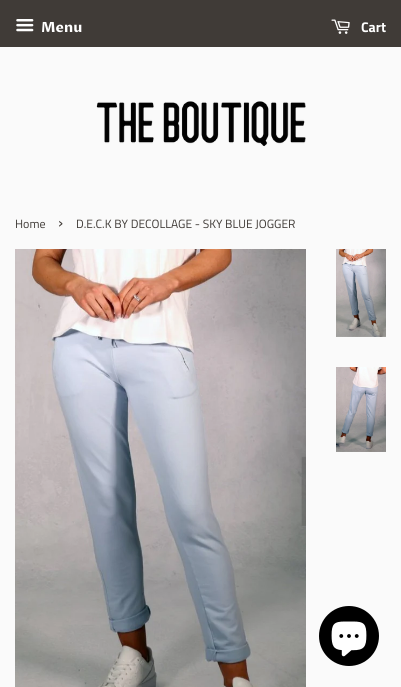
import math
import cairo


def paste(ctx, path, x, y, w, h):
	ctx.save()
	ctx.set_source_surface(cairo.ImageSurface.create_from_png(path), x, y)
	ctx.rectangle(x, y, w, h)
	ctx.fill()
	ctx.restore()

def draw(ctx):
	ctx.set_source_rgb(0.98, 0.98, 0.98)
	ctx.paint()
	ctx.set_source_rgb(0.251, 0.231, 0.216)
	ctx.rectangle(0, 0, 401, 47)
	ctx.fill()
	paste(ctx, 'media/1.png', 16, 19, 18, 13)
	ctx.select_font_face('Proza Libre', cairo.FONT_SLANT_NORMAL, cairo.FONT_WEIGHT_BOLD)
	ctx.set_font_size(14)
	ctx.set_source_rgb(1, 1, 1)
	ctx.move_to(41, 32)
	ctx.show_text('Menu')
	paste(ctx, 'media/2.png', 331, 19, 19, 15)
	ctx.select_font_face('Titillium Web', cairo.FONT_SLANT_NORMAL, cairo.FONT_WEIGHT_BOLD)
	ctx.move_to(361, 32)
	ctx.show_text('Cart')
	paste(ctx, 'media/3.png', 96, 101, 210, 46)
	ctx.select_font_face('Titillium Web')
	ctx.set_font_size(12)
	ctx.set_source_rgb(0.251, 0.231, 0.216)
	ctx.move_to(15, 228)
	ctx.show_text('Home')
	ctx.set_font_size(17)
	ctx.move_to(58, 228)
	ctx.show_text('›')
	ctx.set_font_size(12)
	ctx.move_to(76, 228)
	ctx.show_text('D.E.C.K BY DECOLLAGE - SKY BLUE JOGGER')
	paste(ctx, 'media/4.png', 15, 249, 291, 438)
	paste(ctx, 'media/5.png', 336, 249, 50, 88)
	paste(ctx, 'media/6.png', 336, 367, 50, 85)
	ctx.set_source_rgb(0, 0, 0)
	ctx.arc(349, 636, 30, 0, 2 * math.pi)
	ctx.fill()
	paste(ctx, 'media/7.png', 331, 621, 36, 36)


surface = cairo.ImageSurface(cairo.FORMAT_RGB24, 401, 687)
ctx = cairo.Context(surface)
options = cairo.FontOptions()
options.set_hint_metrics(cairo.HINT_METRICS_OFF)
options.set_hint_style(cairo.HINT_STYLE_NONE)
ctx.set_font_options(options)
ctx.set_miter_limit(4)
draw(ctx)
surface.write_to_png('image.png')
